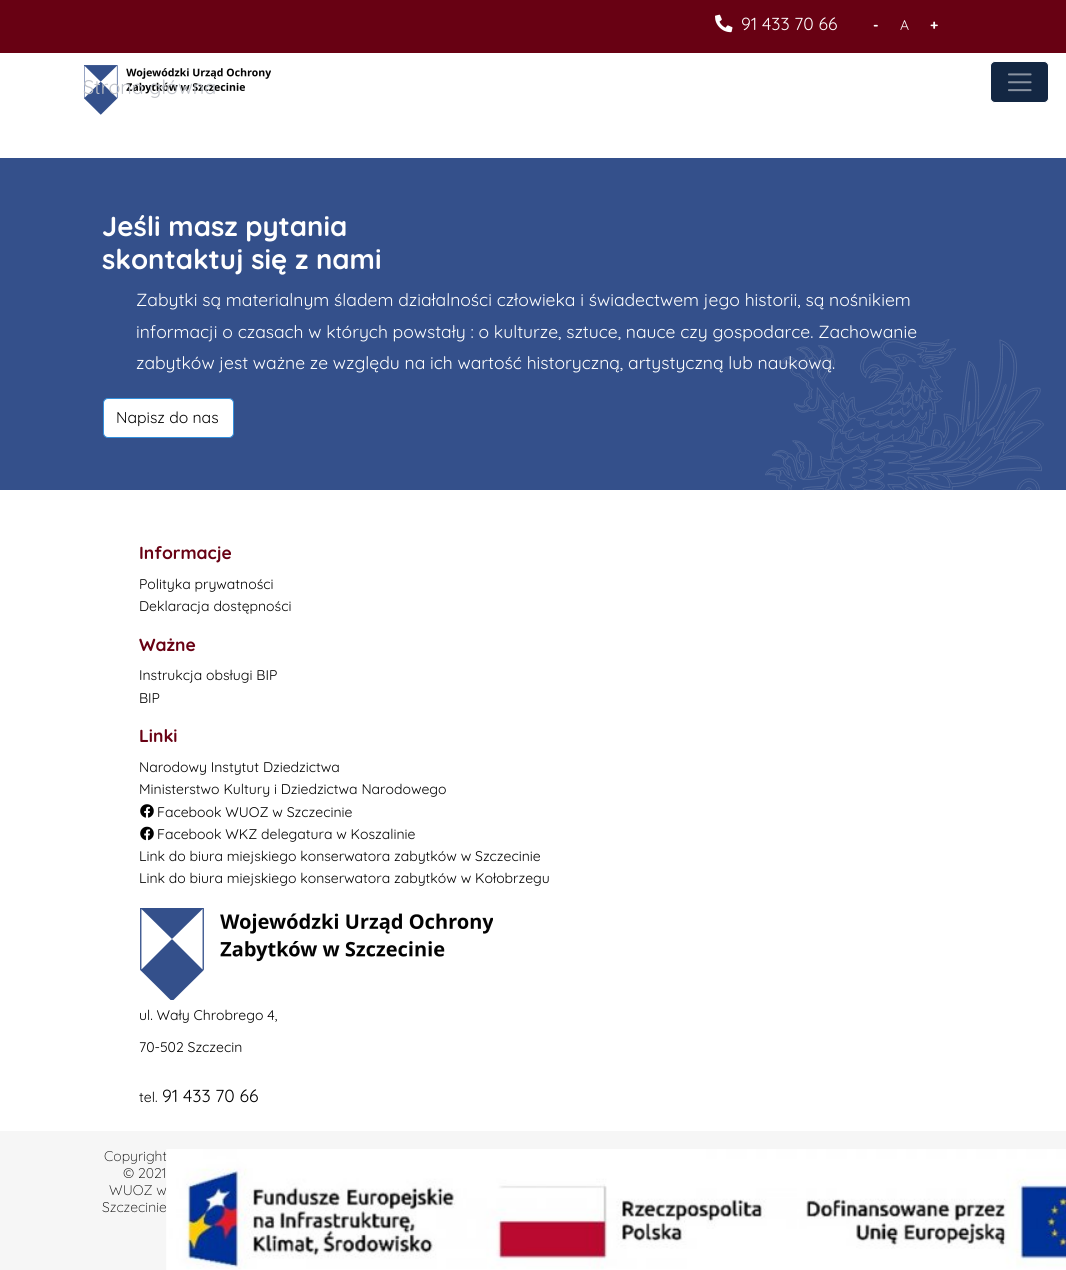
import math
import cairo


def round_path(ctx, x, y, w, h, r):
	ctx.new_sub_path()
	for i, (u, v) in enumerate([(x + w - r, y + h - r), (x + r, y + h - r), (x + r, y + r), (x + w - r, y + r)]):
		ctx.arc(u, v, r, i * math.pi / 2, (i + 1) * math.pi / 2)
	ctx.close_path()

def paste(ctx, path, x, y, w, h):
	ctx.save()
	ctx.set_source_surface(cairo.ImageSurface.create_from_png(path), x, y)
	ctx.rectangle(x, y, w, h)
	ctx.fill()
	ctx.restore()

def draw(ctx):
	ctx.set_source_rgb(0.204, 0.314, 0.545)
	ctx.paint()
	ctx.set_source_rgb(1, 1, 1)
	ctx.rectangle(0, 53, 1066, 105)
	ctx.fill()
	ctx.set_source_rgb(0.408, 0.004, 0.078)
	ctx.rectangle(0, 0, 1066, 53)
	ctx.fill()
	paste(ctx, 'media/1.png', 715, 14, 18, 19)
	ctx.select_font_face('Quicksand')
	ctx.set_font_size(17.5)
	ctx.set_source_rgb(1, 1, 1)
	ctx.move_to(741, 30)
	ctx.show_text('91 433 70 66')
	ctx.select_font_face('Quicksand', cairo.FONT_SLANT_NORMAL, cairo.FONT_WEIGHT_BOLD)
	ctx.set_font_size(14)
	ctx.move_to(873, 30)
	ctx.show_text('-')
	ctx.select_font_face('Quicksand')
	ctx.move_to(900, 30)
	ctx.show_text('A')
	ctx.select_font_face('Quicksand', cairo.FONT_SLANT_NORMAL, cairo.FONT_WEIGHT_BOLD)
	ctx.move_to(930, 30)
	ctx.show_text('+')
	paste(ctx, 'media/2.png', 84, 65, 187, 50)
	ctx.select_font_face('Quicksand')
	ctx.set_font_size(19.75)
	ctx.set_source_rgb(0.749, 0.761, 0.784)
	ctx.move_to(83, 94)
	ctx.show_text('Strona główna')
	ctx.set_source_rgb(0.078, 0.153, 0.263)
	round_path(ctx, 990.5, 61.5, 58, 41, 4.5)
	ctx.fill_preserve()
	ctx.set_source_rgb(1, 1, 1)
	ctx.set_line_width(1)
	ctx.stroke()
	paste(ctx, 'media/3.png', 1008, 73, 24, 19)
	ctx.select_font_face('Quicksand', cairo.FONT_SLANT_NORMAL, cairo.FONT_WEIGHT_BOLD)
	ctx.set_font_size(27.5)
	ctx.move_to(102, 236)
	ctx.show_text('Jeśli masz pytania')
	ctx.move_to(102, 269)
	ctx.show_text('skontaktuj się z nami')
	ctx.select_font_face('Quicksand')
	ctx.set_font_size(17.5)
	ctx.move_to(136, 306)
	ctx.show_text('Zabytki są materialnym śladem działalności człowieka i świadectwem jego historii, są nośnikiem')
	paste(ctx, 'media/4.png', 765, 339, 279, 151)
	ctx.move_to(136, 338)
	ctx.show_text('informacji o czasach w których powstały : o kulturze, sztuce, nauce czy gospodarce. Zachowanie')
	ctx.move_to(136, 369)
	ctx.show_text('zabytków jest ważne ze względu na ich wartość historyczną, artystyczną lub naukową.')
	round_path(ctx, 103.5, 398.5, 130, 39, 4.5)
	ctx.fill_preserve()
	ctx.set_source_rgb(0.204, 0.565, 0.863)
	ctx.stroke()
	ctx.set_font_size(15.75)
	ctx.set_source_rgb(0, 0, 0)
	ctx.move_to(116, 423)
	ctx.show_text('Napisz do nas')
	ctx.set_source_rgb(1, 1, 1)
	ctx.rectangle(0, 490, 1066, 641)
	ctx.fill()
	ctx.select_font_face('Quicksand', cairo.FONT_SLANT_NORMAL, cairo.FONT_WEIGHT_BOLD)
	ctx.set_font_size(17.5)
	ctx.set_source_rgb(0.408, 0.004, 0.078)
	ctx.move_to(139, 559)
	ctx.show_text('Informacje')
	ctx.select_font_face('Quicksand')
	ctx.set_font_size(14)
	ctx.set_source_rgb(0, 0, 0)
	ctx.move_to(139, 589)
	ctx.show_text('Polityka prywatności')
	ctx.move_to(139, 611)
	ctx.show_text('Deklaracja dostępności')
	ctx.select_font_face('Quicksand', cairo.FONT_SLANT_NORMAL, cairo.FONT_WEIGHT_BOLD)
	ctx.set_font_size(17.5)
	ctx.set_source_rgb(0.408, 0.004, 0.078)
	ctx.move_to(139, 651)
	ctx.show_text('Ważne')
	ctx.select_font_face('Quicksand')
	ctx.set_font_size(14)
	ctx.set_source_rgb(0, 0, 0)
	ctx.move_to(139, 680)
	ctx.show_text('Instrukcja obsługi BIP')
	ctx.move_to(139, 703)
	ctx.show_text('BIP')
	ctx.select_font_face('Quicksand', cairo.FONT_SLANT_NORMAL, cairo.FONT_WEIGHT_BOLD)
	ctx.set_font_size(17.5)
	ctx.set_source_rgb(0.408, 0.004, 0.078)
	ctx.move_to(139, 742)
	ctx.show_text('Linki')
	ctx.select_font_face('Quicksand')
	ctx.set_font_size(14)
	ctx.set_source_rgb(0, 0, 0)
	ctx.move_to(139, 772)
	ctx.show_text('Narodowy Instytut Dziedzictwa')
	ctx.move_to(139, 794)
	ctx.show_text('Ministerstwo Kultury i Dziedzictwa Narodowego')
	paste(ctx, 'media/5.png', 140, 804, 14, 14)
	ctx.move_to(157, 817)
	ctx.show_text('Facebook WUOZ w Szczecinie')
	paste(ctx, 'media/6.png', 140, 826, 14, 15)
	for x, y, s in [
		(157, 839, 'Facebook WKZ delegatura w Koszalinie'),
		(139, 861, 'Link do biura miejskiego konserwatora zabytków w Szczecinie'),
		(139, 883, 'Link do biura miejskiego konserwatora zabytków w Kołobrzegu'),
	]:
		ctx.move_to(x, y)
		ctx.show_text(s)
	paste(ctx, 'media/7.png', 140, 908, 353, 92)
	for x, y, s in [
		(139, 1020, 'ul. Wały Chrobrego 4,'),
		(139, 1052, '70-502 Szczecin'),
		(139, 1102, 'tel.'),
	]:
		ctx.move_to(x, y)
		ctx.show_text(s)
	ctx.set_font_size(17.5)
	ctx.move_to(162, 1102)
	ctx.show_text('91 433 70 66')
	ctx.set_source_rgb(0.961, 0.961, 0.961)
	ctx.rectangle(0, 1131, 1066, 139)
	ctx.fill()
	ctx.select_font_face('Quicksand Light')
	ctx.set_font_size(14)
	ctx.set_source_rgb(0, 0, 0)
	for x, y, s in [
		(104, 1161, 'Copyright'),
		(123, 1178, '© 2021'),
		(109, 1195, 'WUOZ w'),
		(102, 1212, 'Szczecinie'),
	]:
		ctx.move_to(x, y)
		ctx.show_text(s)
	paste(ctx, 'media/8.png', 166, 1149, 900, 121)


surface = cairo.ImageSurface(cairo.FORMAT_RGB24, 1066, 1270)
ctx = cairo.Context(surface)
options = cairo.FontOptions()
options.set_hint_metrics(cairo.HINT_METRICS_OFF)
options.set_hint_style(cairo.HINT_STYLE_NONE)
ctx.set_font_options(options)
ctx.set_miter_limit(4)
draw(ctx)
surface.write_to_png('image.png')
